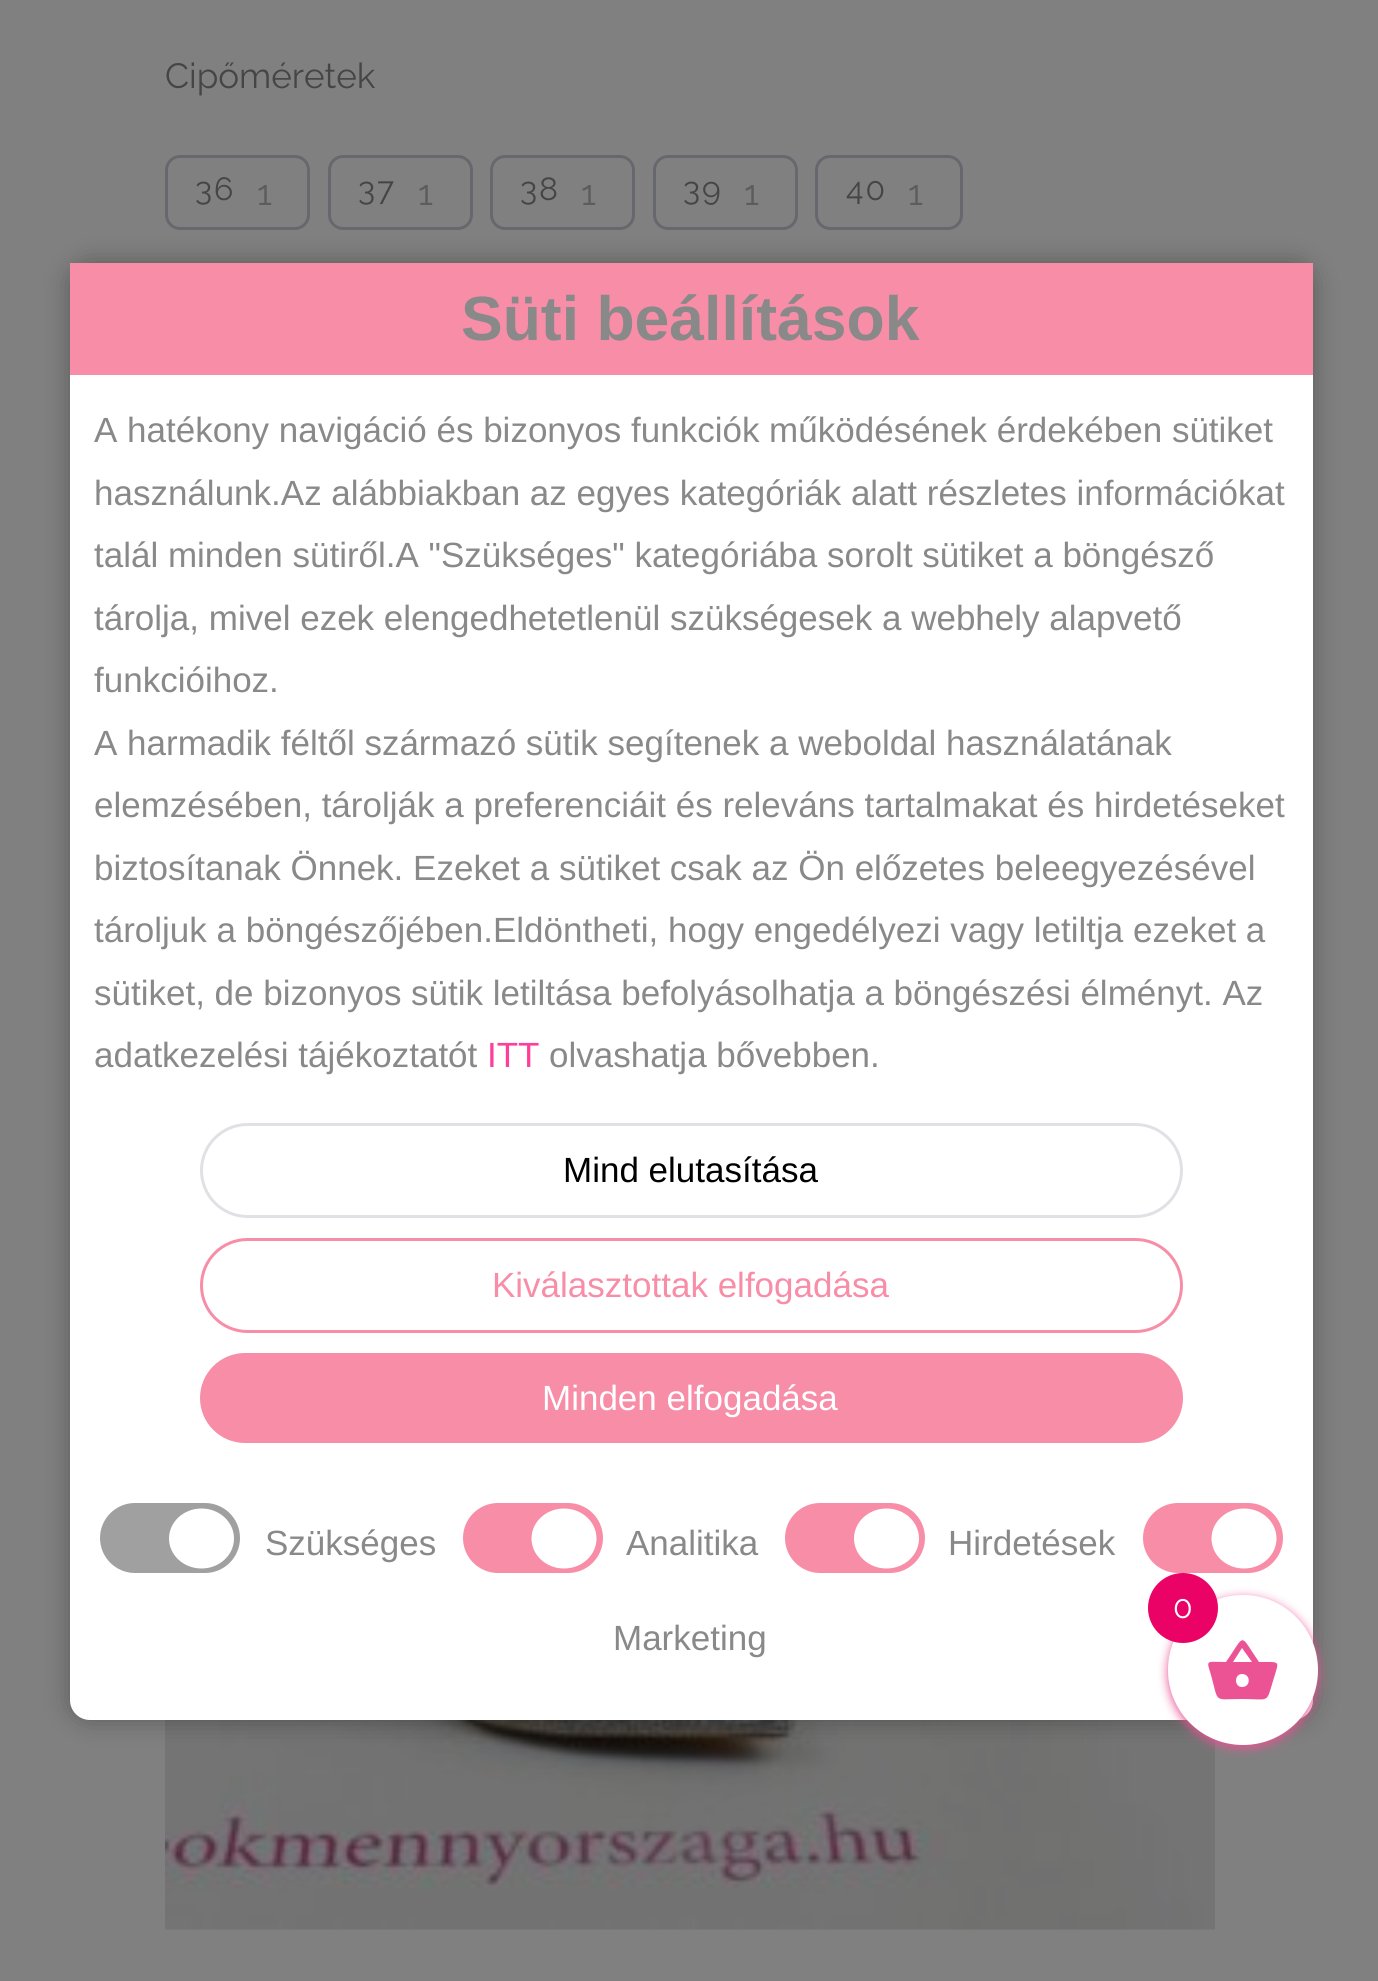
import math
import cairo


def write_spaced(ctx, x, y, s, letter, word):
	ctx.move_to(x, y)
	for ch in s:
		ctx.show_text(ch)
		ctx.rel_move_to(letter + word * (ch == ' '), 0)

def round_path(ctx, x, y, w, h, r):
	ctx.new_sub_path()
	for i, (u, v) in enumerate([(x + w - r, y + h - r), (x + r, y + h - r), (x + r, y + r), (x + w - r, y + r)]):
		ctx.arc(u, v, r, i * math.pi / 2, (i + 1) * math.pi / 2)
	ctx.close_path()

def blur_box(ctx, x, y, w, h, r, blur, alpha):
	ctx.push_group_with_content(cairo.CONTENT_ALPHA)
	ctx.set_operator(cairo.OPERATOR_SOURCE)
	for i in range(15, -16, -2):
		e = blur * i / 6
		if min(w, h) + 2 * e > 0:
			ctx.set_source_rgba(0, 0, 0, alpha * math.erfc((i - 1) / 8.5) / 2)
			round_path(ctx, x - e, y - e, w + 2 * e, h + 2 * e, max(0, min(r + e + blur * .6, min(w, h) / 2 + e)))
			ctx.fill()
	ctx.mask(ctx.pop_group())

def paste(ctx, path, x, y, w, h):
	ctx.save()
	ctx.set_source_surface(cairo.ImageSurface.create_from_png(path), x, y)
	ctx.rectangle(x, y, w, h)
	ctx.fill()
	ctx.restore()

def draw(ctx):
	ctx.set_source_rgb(0.502, 0.502, 0.502)
	ctx.paint()
	ctx.select_font_face('Raleway')
	ctx.set_font_size(35)
	ctx.set_source_rgb(0.271, 0.271, 0.271)
	ctx.move_to(165, 88)
	ctx.show_text('Cipőméretek')
	round_path(ctx, 166.5, 156.5, 142, 72, 13.5)
	ctx.set_source_rgb(0.4, 0.408, 0.431)
	ctx.set_line_width(3)
	ctx.stroke()
	ctx.set_font_size(32)
	ctx.set_source_rgb(0.271, 0.271, 0.271)
	write_spaced(ctx, 195, 200, '36', 2, 0)
	ctx.set_font_size(35)
	ctx.set_source_rgb(0.361, 0.361, 0.361)
	ctx.move_to(257, 205)
	ctx.show_text('1')
	round_path(ctx, 329.5, 156.5, 142, 72, 13.5)
	ctx.set_source_rgb(0.4, 0.408, 0.431)
	ctx.stroke()
	ctx.set_font_size(32)
	ctx.set_source_rgb(0.271, 0.271, 0.271)
	write_spaced(ctx, 358, 200, '37', 2, 0)
	ctx.set_font_size(35)
	ctx.set_source_rgb(0.361, 0.361, 0.361)
	ctx.move_to(418, 205)
	ctx.show_text('1')
	round_path(ctx, 491.5, 156.5, 142, 72, 13.5)
	ctx.set_source_rgb(0.4, 0.408, 0.431)
	ctx.stroke()
	ctx.set_font_size(32)
	ctx.set_source_rgb(0.271, 0.271, 0.271)
	write_spaced(ctx, 520, 200, '38', 2, 0)
	ctx.set_font_size(35)
	ctx.set_source_rgb(0.361, 0.361, 0.361)
	ctx.move_to(581, 205)
	ctx.show_text('1')
	round_path(ctx, 654.5, 156.5, 142, 72, 13.5)
	ctx.set_source_rgb(0.4, 0.408, 0.431)
	ctx.stroke()
	ctx.set_font_size(32)
	ctx.set_source_rgb(0.271, 0.271, 0.271)
	write_spaced(ctx, 683, 200, '39', 2, 0)
	ctx.set_font_size(35)
	ctx.set_source_rgb(0.361, 0.361, 0.361)
	ctx.move_to(744, 205)
	ctx.show_text('1')
	round_path(ctx, 816.5, 156.5, 145, 72, 13.5)
	ctx.set_source_rgb(0.4, 0.408, 0.431)
	ctx.stroke()
	ctx.set_font_size(32)
	ctx.set_source_rgb(0.271, 0.271, 0.271)
	write_spaced(ctx, 846, 200, '40', 2, 0)
	ctx.set_font_size(35)
	ctx.set_source_rgb(0.361, 0.361, 0.361)
	ctx.move_to(908, 205)
	ctx.show_text('1')
	paste(ctx, 'media/1.png', 165, 1720, 1050, 210)
	ctx.set_source_rgb(0, 0, 0)
	blur_box(ctx, 70, 263, 1243, 1457, 20, 12.5, 0.3)
	ctx.set_source_rgb(1, 1, 1)
	round_path(ctx, 70, 263, 1243, 1457, 20)
	ctx.fill()
	ctx.set_source_rgb(0.969, 0.553, 0.655)
	ctx.rectangle(70, 263, 1243, 112)
	ctx.fill()
	ctx.select_font_face('Liberation Sans', cairo.FONT_SLANT_NORMAL, cairo.FONT_WEIGHT_BOLD)
	ctx.set_font_size(62.5)
	ctx.set_source_rgb(0.537, 0.537, 0.537)
	ctx.move_to(461, 340)
	ctx.show_text('Süti beállítások')
	ctx.select_font_face('Liberation Sans')
	ctx.set_font_size(35)
	for x, y, s in [
		(94, 442, 'A hatékony navigáció és bizonyos funkciók működésének érdekében sütiket'),
		(94, 505, 'használunk.Az alábbiakban az egyes kategóriák alatt részletes információkat'),
		(94, 567, 'talál minden sütiről.A "Szükséges" kategóriába sorolt sütiket a böngésző'),
		(94, 630, 'tárolja, mivel ezek elengedhetetlenül szükségesek a webhely alapvető'),
		(94, 692, 'funkcióihoz.'),
		(94, 755, 'A harmadik féltől származó sütik segítenek a weboldal használatának'),
		(94, 817, 'elemzésében, tárolják a preferenciáit és releváns tartalmakat és hirdetéseket'),
		(94, 880, 'biztosítanak Önnek. Ezeket a sütiket csak az Ön előzetes beleegyezésével'),
		(94, 942, 'tároljuk a böngészőjében.Eldöntheti, hogy engedélyezi vagy letiltja ezeket a'),
		(94, 1005, 'sütiket, de bizonyos sütik letiltása befolyásolhatja a böngészési élményt. Az'),
		(94, 1067, 'adatkezelési tájékoztatót'),
	]:
		ctx.move_to(x, y)
		ctx.show_text(s)
	ctx.set_source_rgb(1, 0.243, 0.6)
	ctx.move_to(487, 1067)
	ctx.show_text('ITT')
	ctx.set_source_rgb(0.537, 0.537, 0.537)
	ctx.move_to(549, 1067)
	ctx.show_text('olvashatja bővebben.')
	round_path(ctx, 201.5, 1124.5, 980, 92, 46)
	ctx.set_source_rgb(0.875, 0.882, 0.898)
	ctx.stroke()
	ctx.set_source_rgb(0, 0, 0)
	ctx.move_to(563, 1182)
	ctx.show_text('Mind elutasítása')
	round_path(ctx, 201.5, 1239.5, 980, 92, 46)
	ctx.set_source_rgb(0.969, 0.553, 0.655)
	ctx.stroke()
	ctx.move_to(492, 1297)
	ctx.show_text('Kiválasztottak elfogadása')
	round_path(ctx, 200, 1353, 983, 90, 45)
	ctx.fill()
	ctx.set_source_rgb(1, 1, 1)
	ctx.move_to(542, 1410)
	ctx.show_text('Minden elfogadása')
	ctx.set_source_rgb(0.627, 0.627, 0.627)
	round_path(ctx, 100, 1503, 140, 70, 35)
	ctx.fill()
	ctx.set_source_rgb(1, 1, 1)
	ctx.new_path()
	ctx.move_to(201.5, 1508.5)
	ctx.curve_to(219.5, 1508.5, 234, 1522, 234, 1538.5)
	ctx.curve_to(234, 1555, 219.5, 1568.5, 201.5, 1568.5)
	ctx.curve_to(183.5, 1568.5, 169, 1555, 169, 1538.5)
	ctx.curve_to(169, 1522, 183.5, 1508.5, 201.5, 1508.5)
	ctx.close_path()
	ctx.fill()
	ctx.set_source_rgb(0.537, 0.537, 0.537)
	ctx.move_to(265, 1555)
	ctx.show_text('Szükséges')
	ctx.set_source_rgb(0.969, 0.553, 0.655)
	round_path(ctx, 463, 1503, 140, 70, 35)
	ctx.fill()
	ctx.set_source_rgb(1, 1, 1)
	ctx.new_path()
	ctx.move_to(564, 1508.5)
	ctx.curve_to(582, 1508.5, 596.5, 1522, 596.5, 1538.5)
	ctx.curve_to(596.5, 1555, 582, 1568.5, 564, 1568.5)
	ctx.curve_to(546, 1568.5, 531.5, 1555, 531.5, 1538.5)
	ctx.curve_to(531.5, 1522, 546, 1508.5, 564, 1508.5)
	ctx.close_path()
	ctx.fill()
	ctx.set_source_rgb(0.537, 0.537, 0.537)
	ctx.move_to(626, 1555)
	ctx.show_text('Analitika')
	ctx.set_source_rgb(0.969, 0.553, 0.655)
	round_path(ctx, 785, 1503, 140, 70, 35)
	ctx.fill()
	ctx.set_source_rgb(1, 1, 1)
	ctx.new_path()
	ctx.move_to(886.5, 1508.5)
	ctx.curve_to(904.5, 1508.5, 919, 1522, 919, 1538.5)
	ctx.curve_to(919, 1555, 904.5, 1568.5, 886.5, 1568.5)
	ctx.curve_to(868.5, 1568.5, 854, 1555, 854, 1538.5)
	ctx.curve_to(854, 1522, 868.5, 1508.5, 886.5, 1508.5)
	ctx.close_path()
	ctx.fill()
	ctx.set_source_rgb(0.537, 0.537, 0.537)
	ctx.move_to(948, 1555)
	ctx.show_text('Hirdetések')
	ctx.set_source_rgb(0.969, 0.553, 0.655)
	round_path(ctx, 1143, 1503, 140, 70, 35)
	ctx.fill()
	ctx.set_source_rgb(1, 1, 1)
	ctx.new_path()
	ctx.move_to(1244, 1508.5)
	ctx.curve_to(1262, 1508.5, 1276.5, 1522, 1276.5, 1538.5)
	ctx.curve_to(1276.5, 1555, 1262, 1568.5, 1244, 1568.5)
	ctx.curve_to(1226, 1568.5, 1211.5, 1555, 1211.5, 1538.5)
	ctx.curve_to(1211.5, 1522, 1226, 1508.5, 1244, 1508.5)
	ctx.close_path()
	ctx.fill()
	ctx.set_source_rgb(0.537, 0.537, 0.537)
	ctx.move_to(613, 1650)
	ctx.show_text('Marketing')
	ctx.set_source_rgb(0.922, 0.325, 0.584)
	blur_box(ctx, 1168, 1598, 150, 150, 75, 5, 1)
	ctx.set_source_rgb(1, 1, 1)
	ctx.arc(1243, 1670, 75, 0, 2 * math.pi)
	ctx.fill()
	ctx.set_source_rgb(0.922, 0.325, 0.584)
	ctx.new_path()
	ctx.move_to(1242, 1687)
	ctx.curve_to(1251, 1687, 1251, 1674, 1242, 1674)
	ctx.curve_to(1234, 1674, 1234, 1687, 1242, 1687)
	ctx.close_path()
	ctx.move_to(1233, 1662)
	ctx.line_to(1252, 1662)
	ctx.line_to(1242, 1648)
	ctx.close_path()
	ctx.move_to(1259, 1662)
	ctx.curve_to(1282, 1662, 1279, 1660, 1273, 1681)
	ctx.curve_to(1266, 1704, 1270, 1699, 1242, 1699)
	ctx.curve_to(1213, 1699, 1219, 1704, 1211, 1675)
	ctx.curve_to(1206, 1659, 1206, 1662, 1226, 1662)
	ctx.curve_to(1246, 1633, 1239, 1633, 1259, 1662)
	ctx.close_path()
	ctx.fill()
	ctx.set_source_rgb(0.918, 0.008, 0.4)
	ctx.arc(1183, 1608, 35, 0, 2 * math.pi)
	ctx.fill()
	ctx.select_font_face('Raleway')
	ctx.set_font_size(32)
	ctx.set_source_rgb(1, 1, 1)
	ctx.move_to(1173, 1618)
	ctx.show_text('0')


surface = cairo.ImageSurface(cairo.FORMAT_RGB24, 1378, 1981)
ctx = cairo.Context(surface)
options = cairo.FontOptions()
options.set_hint_metrics(cairo.HINT_METRICS_OFF)
options.set_hint_style(cairo.HINT_STYLE_NONE)
ctx.set_font_options(options)
ctx.set_miter_limit(4)
draw(ctx)
surface.write_to_png('image.png')
